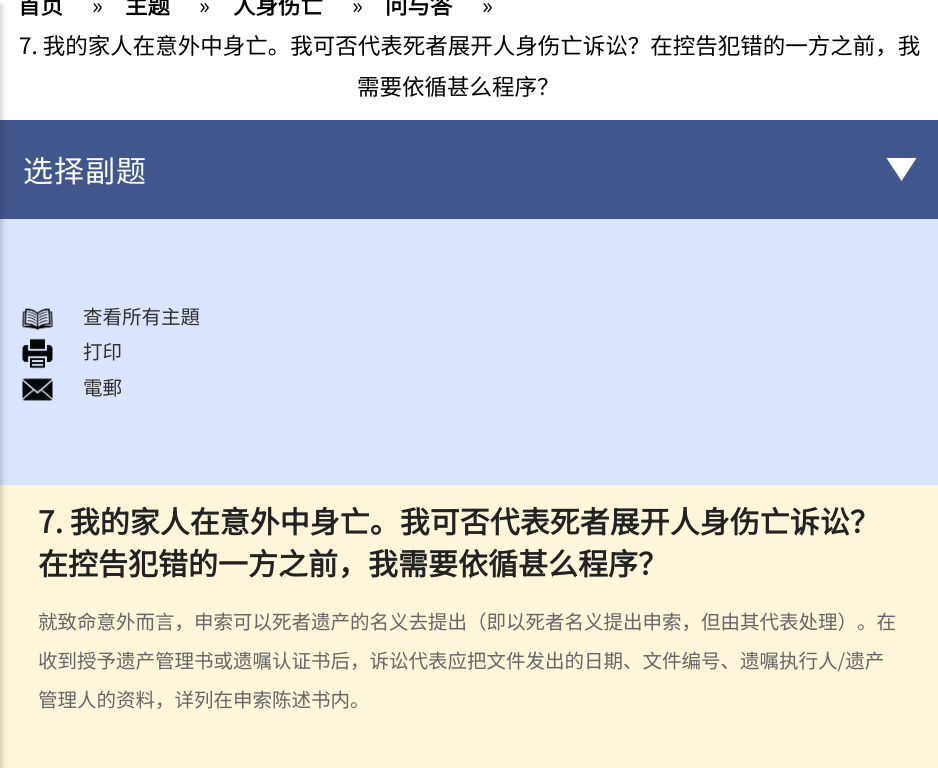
import math
import cairo


def write_spaced(ctx, x, y, s, letter, word):
	ctx.move_to(x, y)
	for ch in s:
		ctx.show_text(ch)
		ctx.rel_move_to(letter + word * (ch == ' '), 0)

def round_path(ctx, x, y, w, h, r):
	ctx.new_sub_path()
	for i, (u, v) in enumerate([(x + w - r, y + h - r), (x + r, y + h - r), (x + r, y + r), (x + w - r, y + r)]):
		ctx.arc(u, v, r, i * math.pi / 2, (i + 1) * math.pi / 2)
	ctx.close_path()

def blur_box(ctx, x, y, w, h, r, blur, alpha):
	ctx.push_group_with_content(cairo.CONTENT_ALPHA)
	ctx.set_operator(cairo.OPERATOR_SOURCE)
	for i in range(15, -16, -2):
		e = blur * i / 6
		if min(w, h) + 2 * e > 0:
			ctx.set_source_rgba(0, 0, 0, alpha * math.erfc((i - 1) / 8.5) / 2)
			round_path(ctx, x - e, y - e, w + 2 * e, h + 2 * e, max(0, min(r + e + blur * .6, min(w, h) / 2 + e)))
			ctx.fill()
	ctx.mask(ctx.pop_group())

def paste(ctx, path, x, y, w, h):
	ctx.save()
	ctx.set_source_surface(cairo.ImageSurface.create_from_png(path), x, y)
	ctx.rectangle(x, y, w, h)
	ctx.fill()
	ctx.restore()

def draw(ctx):
	ctx.set_source_rgb(1, 1, 1)
	ctx.paint()
	ctx.set_source_rgb(0.859, 0.894, 0.992)
	ctx.rectangle(0, 219, 938, 266)
	ctx.fill()
	ctx.set_source_rgb(0.259, 0.337, 0.557)
	ctx.rectangle(0, 120, 938, 99)
	ctx.fill()
	ctx.set_source_rgb(0.992, 0.961, 0.859)
	ctx.rectangle(0, 485, 938, 283)
	ctx.fill()
	ctx.set_source_rgb(0, 0, 0)
	blur_box(ctx, -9, 5, 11, 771, 0, 3, 0.2)
	ctx.select_font_face('Noto Sans SC', cairo.FONT_SLANT_NORMAL, cairo.FONT_WEIGHT_BOLD)
	ctx.set_font_size(22.5)
	ctx.set_source_rgb(0, 0, 0)
	ctx.move_to(18, 14)
	ctx.show_text('首页')
	ctx.select_font_face('Noto Sans SC Thin')
	ctx.move_to(92, 14)
	ctx.show_text('»')
	ctx.select_font_face('Noto Sans SC', cairo.FONT_SLANT_NORMAL, cairo.FONT_WEIGHT_BOLD)
	ctx.move_to(125, 14)
	ctx.show_text('主题')
	ctx.select_font_face('Noto Sans SC Thin')
	ctx.move_to(199, 14)
	ctx.show_text('»')
	ctx.select_font_face('Noto Sans SC', cairo.FONT_SLANT_NORMAL, cairo.FONT_WEIGHT_BOLD)
	ctx.move_to(233, 14)
	ctx.show_text('人身伤亡')
	ctx.select_font_face('Noto Sans SC Thin')
	ctx.move_to(352, 14)
	ctx.show_text('»')
	ctx.select_font_face('Noto Sans SC', cairo.FONT_SLANT_NORMAL, cairo.FONT_WEIGHT_BOLD)
	ctx.move_to(385, 14)
	ctx.show_text('问与答')
	ctx.select_font_face('Noto Sans SC Thin')
	for x, y, s in [
		(482, 14, '»'),
		(19, 54, '7. 我的家人在意外中身亡。我可否代表死者展开人身伤亡诉讼？在控告犯错的一方之前，我'),
		(357, 95, '需要依循甚么程序？'),
	]:
		ctx.move_to(x, y)
		ctx.show_text(s)
	ctx.set_font_size(30)
	ctx.set_source_rgb(1, 1, 1)
	write_spaced(ctx, 23, 182, '选择副题', 1, 0)
	ctx.new_path()
	ctx.move_to(886.5, 158)
	ctx.line_to(916.5, 158)
	ctx.line_to(901.5, 181)
	ctx.close_path()
	ctx.fill()
	paste(ctx, 'media/1.png', 22, 308, 31, 22)
	ctx.set_font_size(19.5)
	ctx.set_source_rgb(0.188, 0.188, 0.188)
	ctx.move_to(83, 324)
	ctx.show_text('查看所有主題')
	paste(ctx, 'media/2.png', 22, 338, 31, 31)
	ctx.move_to(83, 359)
	ctx.show_text('打印')
	paste(ctx, 'media/3.png', 22, 378, 31, 23)
	ctx.move_to(83, 395)
	ctx.show_text('電郵')
	ctx.select_font_face('Noto Sans SC', cairo.FONT_SLANT_NORMAL, cairo.FONT_WEIGHT_BOLD)
	ctx.set_font_size(30)
	ctx.set_source_rgb(0.133, 0.133, 0.133)
	ctx.move_to(38, 533)
	ctx.show_text('7. 我的家人在意外中身亡。我可否代表死者展开人身伤亡诉讼？')
	ctx.move_to(38, 575)
	ctx.show_text('在控告犯错的一方之前，我需要依循甚么程序？')
	ctx.select_font_face('Noto Sans SC Thin')
	ctx.set_font_size(19.5)
	ctx.set_source_rgb(0.4, 0.4, 0.4)
	for x, y, s in [
		(38, 629, '就致命意外而言，申索可以死者遗产的名义去提出（即以死者名义提出申索，但由其代表处理）。在'),
		(38, 668, '收到授予遗产管理书或遗嘱认证书后，诉讼代表应把文件发出的日期、文件编号、遗嘱执行人/遗产'),
		(38, 707, '管理人的资料，详列在申索陈述书内。'),
	]:
		ctx.move_to(x, y)
		ctx.show_text(s)


surface = cairo.ImageSurface(cairo.FORMAT_RGB24, 938, 768)
ctx = cairo.Context(surface)
options = cairo.FontOptions()
options.set_hint_metrics(cairo.HINT_METRICS_OFF)
options.set_hint_style(cairo.HINT_STYLE_NONE)
ctx.set_font_options(options)
ctx.set_miter_limit(4)
draw(ctx)
surface.write_to_png('image.png')
